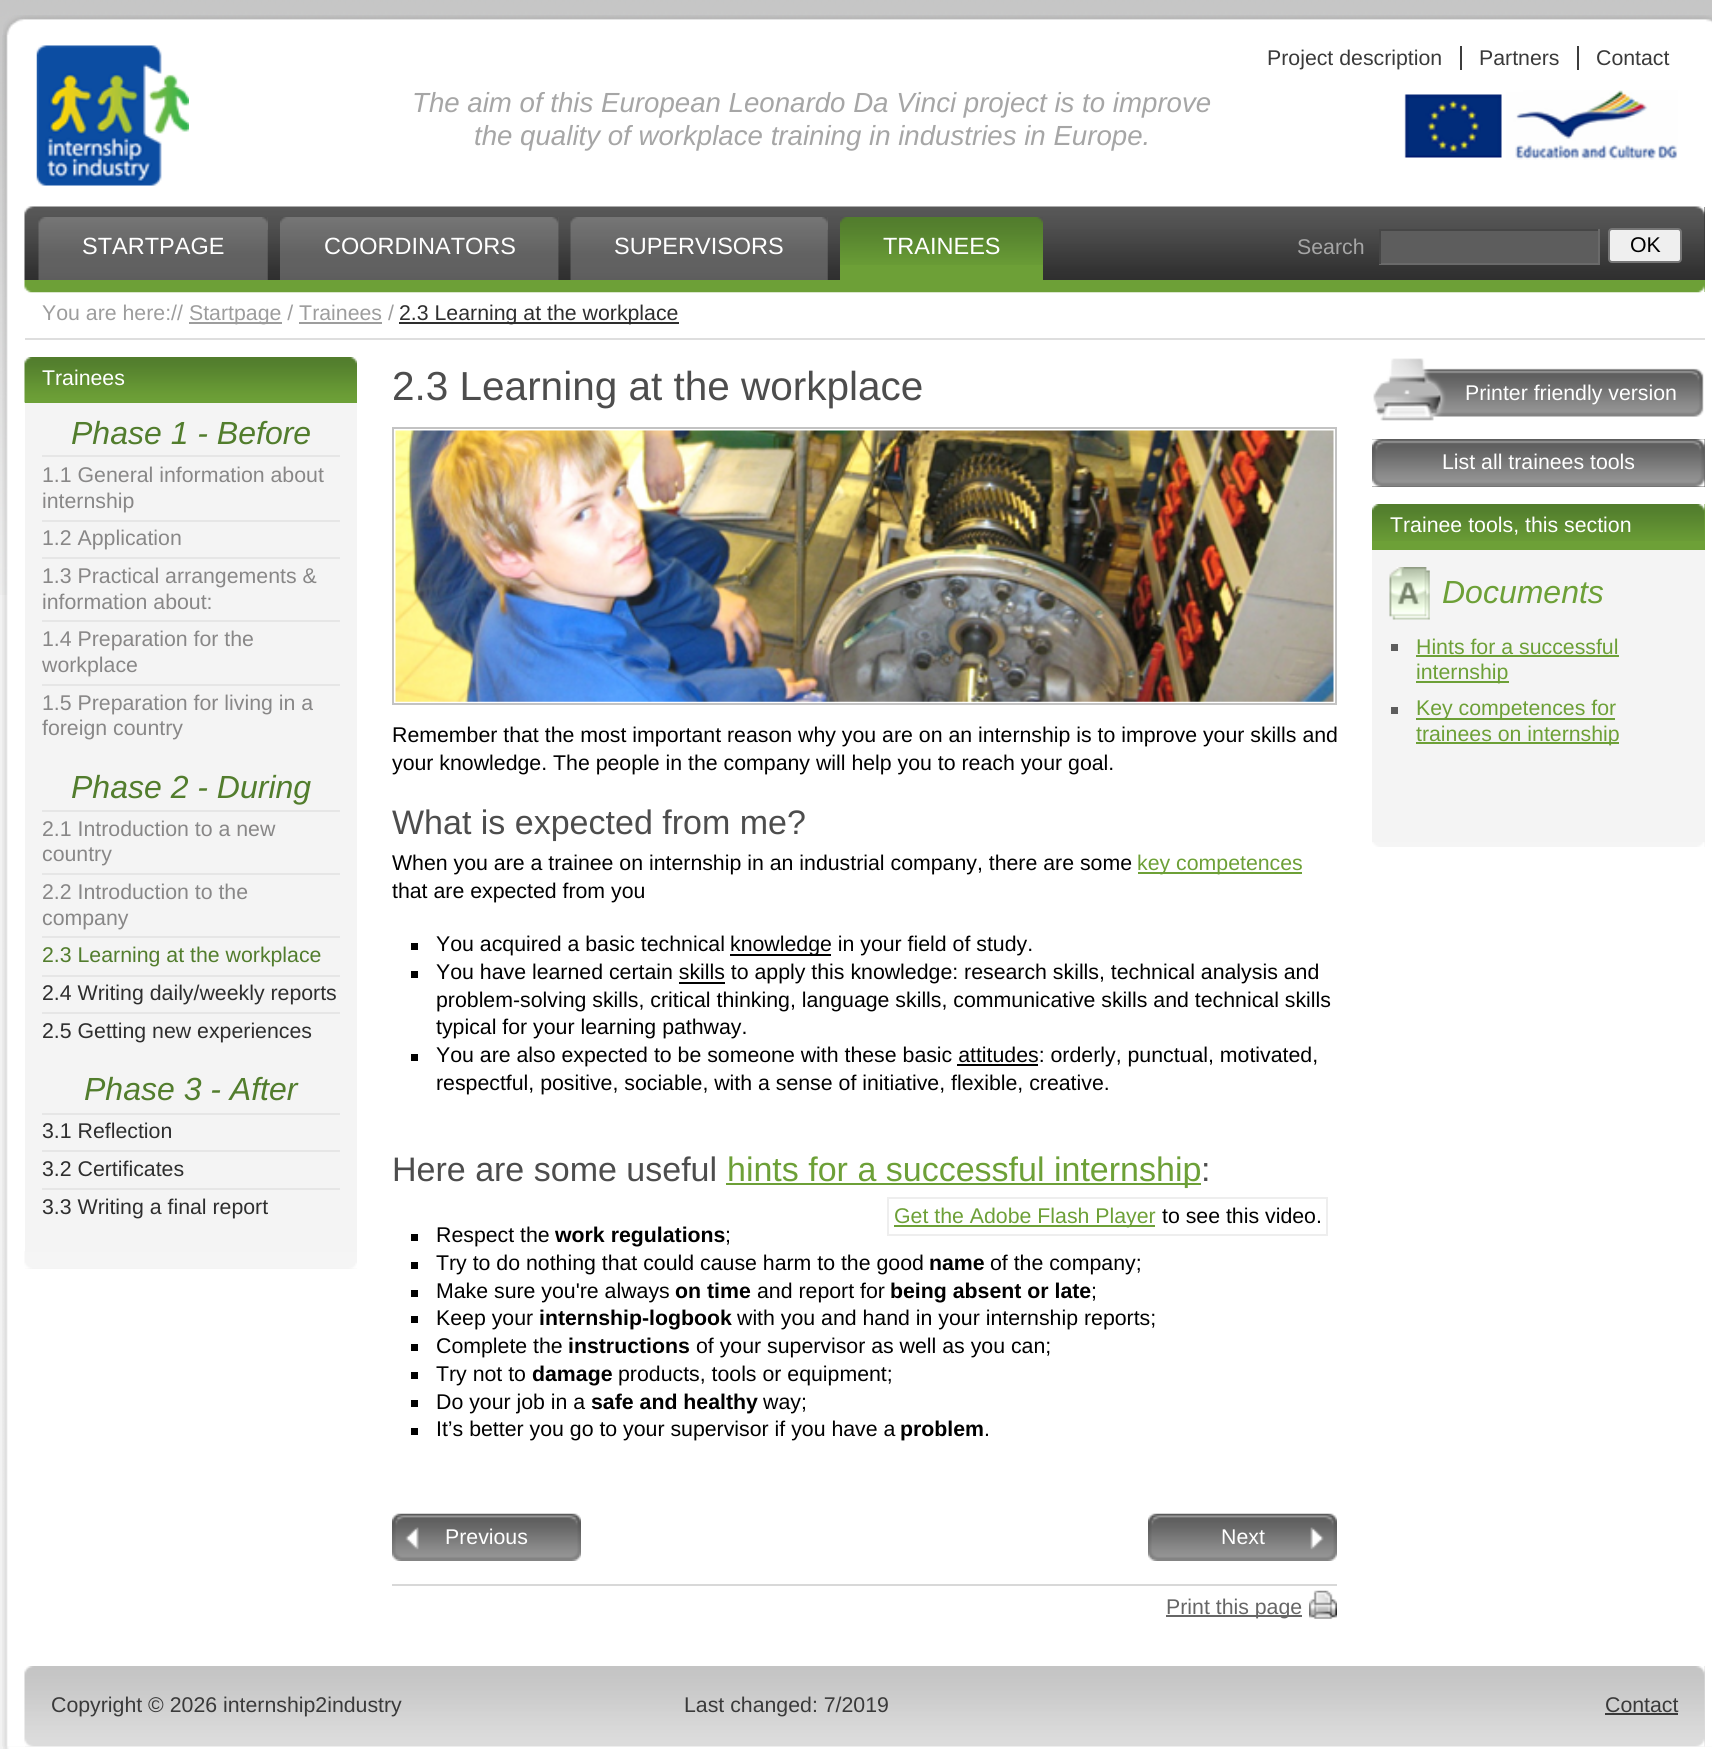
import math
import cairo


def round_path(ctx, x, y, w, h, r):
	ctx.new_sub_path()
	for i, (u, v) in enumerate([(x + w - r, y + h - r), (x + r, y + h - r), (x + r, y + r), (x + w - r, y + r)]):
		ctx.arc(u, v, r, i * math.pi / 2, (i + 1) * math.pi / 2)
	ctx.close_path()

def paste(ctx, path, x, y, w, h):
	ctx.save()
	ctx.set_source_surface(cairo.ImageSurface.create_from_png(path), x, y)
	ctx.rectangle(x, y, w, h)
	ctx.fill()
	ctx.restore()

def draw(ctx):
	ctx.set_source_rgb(0.949, 0.949, 0.949)
	ctx.paint()
	paste(ctx, 'media/1.png', 0, 0, 1712, 595)
	paste(ctx, 'media/2.png', 3, 15, 1709, 20)
	paste(ctx, 'media/3.png', 2, 35, 1710, 1712)
	paste(ctx, 'media/4.png', 36, 45, 153, 141)
	ctx.select_font_face('Liberation Sans')
	ctx.set_font_size(21.3)
	ctx.set_source_rgb(0.227, 0.227, 0.227)
	ctx.move_to(1267, 65)
	ctx.show_text('Project description')
	ctx.set_source_rgb(0.235, 0.235, 0.235)
	ctx.rectangle(1460, 46, 2, 24)
	ctx.fill()
	ctx.set_source_rgb(0.227, 0.227, 0.227)
	ctx.move_to(1479, 65)
	ctx.show_text('Partners')
	ctx.set_source_rgb(0.235, 0.235, 0.235)
	ctx.rectangle(1577, 46, 2, 24)
	ctx.fill()
	ctx.set_source_rgb(0.227, 0.227, 0.227)
	ctx.move_to(1596, 65)
	ctx.show_text('Contact')
	ctx.select_font_face('Liberation Sans', cairo.FONT_SLANT_ITALIC)
	ctx.set_font_size(27.65)
	ctx.set_source_rgb(0.651, 0.651, 0.651)
	ctx.move_to(412, 112)
	ctx.show_text('The aim of this European Leonardo Da Vinci project is to improve')
	ctx.move_to(474, 145)
	ctx.show_text('the quality of workplace training in industries in Europe.')
	paste(ctx, 'media/5.png', 1404, 90, 274, 70)
	ctx.set_source_rgb(0.184, 0.184, 0.184)
	ctx.rectangle(1704, 207, 1, 73)
	ctx.fill()
	paste(ctx, 'media/6.png', 24, 206, 1681, 74)
	paste(ctx, 'media/7.png', 38, 217, 230, 63)
	paste(ctx, 'media/8.png', 262, 217, 6, 13)
	ctx.select_font_face('Liberation Sans')
	ctx.set_font_size(23.5)
	ctx.set_source_rgb(1, 1, 1)
	ctx.move_to(82, 254)
	ctx.show_text('STARTPAGE')
	paste(ctx, 'media/9.png', 280, 217, 279, 63)
	paste(ctx, 'media/10.png', 552, 217, 7, 63)
	ctx.move_to(324, 254)
	ctx.show_text('COORDINATORS')
	paste(ctx, 'media/11.png', 570, 217, 258, 63)
	paste(ctx, 'media/8.png', 822, 217, 6, 13)
	ctx.move_to(614, 254)
	ctx.show_text('SUPERVISORS')
	ctx.set_source_rgb(0.427, 0.627, 0.216)
	ctx.rectangle(840, 265, 203, 15)
	ctx.fill()
	paste(ctx, 'media/12.png', 840, 217, 9, 48)
	paste(ctx, 'media/13.png', 849, 217, 194, 48)
	ctx.set_source_rgb(1, 1, 1)
	ctx.move_to(883, 254)
	ctx.show_text('TRAINEES')
	ctx.set_font_size(21.3)
	ctx.set_source_rgb(0.651, 0.651, 0.651)
	ctx.move_to(1297, 254)
	ctx.show_text('Search')
	ctx.set_source_rgb(0.365, 0.365, 0.365)
	ctx.rectangle(1381, 231, 217, 32)
	ctx.fill()
	ctx.set_source_rgb(0.275, 0.275, 0.275)
	ctx.rectangle(1379, 229, 221, 2)
	ctx.fill()
	ctx.set_source_rgb(0.416, 0.416, 0.416)
	ctx.rectangle(1598, 229, 2, 35)
	ctx.rectangle(1379, 263, 221, 2)
	ctx.fill()
	ctx.set_source_rgb(0.275, 0.275, 0.275)
	ctx.rectangle(1379, 229, 2, 35)
	ctx.fill()
	ctx.set_source_rgb(0.937, 0.937, 0.937)
	round_path(ctx, 1609, 229, 72, 33, 3)
	ctx.fill_preserve()
	ctx.set_source_rgb(0.463, 0.463, 0.463)
	ctx.stroke()
	ctx.set_source_rgb(0, 0, 0)
	ctx.move_to(1630, 252)
	ctx.show_text('OK')
	ctx.set_source_rgb(0.427, 0.627, 0.216)
	ctx.rectangle(1704, 280, 1, 12)
	ctx.fill()
	paste(ctx, 'media/14.png', 24, 280, 1681, 13)
	ctx.set_source_rgb(0.871, 0.871, 0.871)
	ctx.rectangle(25, 338, 1680, 2)
	ctx.fill()
	ctx.set_source_rgb(0.616, 0.616, 0.616)
	ctx.move_to(42, 320)
	ctx.show_text('You are here://')
	ctx.rectangle(189, 322, 93, 2)
	ctx.fill()
	ctx.move_to(189, 320)
	ctx.show_text('Startpage / Trainees /')
	ctx.set_source_rgb(0.18, 0.18, 0.18)
	ctx.rectangle(399, 322, 280, 2)
	ctx.fill()
	ctx.move_to(399, 320)
	ctx.show_text('2.3 Learning at the workplace')
	ctx.set_source_rgb(0.616, 0.616, 0.616)
	ctx.rectangle(299, 322, 83, 2)
	ctx.fill()
	ctx.set_source_rgb(0.427, 0.627, 0.216)
	ctx.rectangle(25, 402, 332, 1)
	ctx.fill()
	paste(ctx, 'media/15.png', 24, 357, 333, 46)
	ctx.set_source_rgb(1, 1, 1)
	ctx.move_to(42, 385)
	ctx.show_text('Trainees')
	ctx.set_source_rgb(0.957, 0.957, 0.957)
	ctx.rectangle(25, 403, 332, 866)
	ctx.fill()
	paste(ctx, 'media/16.png', 24, 1251, 333, 18)
	ctx.select_font_face('Liberation Sans', cairo.FONT_SLANT_ITALIC)
	ctx.set_font_size(32)
	ctx.set_source_rgb(0.322, 0.49, 0.176)
	ctx.move_to(71, 444)
	ctx.show_text('Phase 1 - Before')
	ctx.set_source_rgb(0.902, 0.902, 0.902)
	ctx.rectangle(42, 455, 298, 2)
	ctx.fill()
	ctx.select_font_face('Liberation Sans')
	ctx.set_font_size(21.3)
	ctx.set_source_rgb(0.533, 0.529, 0.529)
	ctx.move_to(42, 482)
	ctx.show_text('1.1 General information about')
	ctx.move_to(42, 508)
	ctx.show_text('internship')
	ctx.set_source_rgb(0.902, 0.902, 0.902)
	ctx.rectangle(42, 520, 298, 2)
	ctx.fill()
	ctx.set_source_rgb(0.533, 0.529, 0.529)
	ctx.move_to(42, 545)
	ctx.show_text('1.2 Application')
	ctx.set_source_rgb(0.902, 0.902, 0.902)
	ctx.rectangle(42, 557, 298, 2)
	ctx.fill()
	ctx.set_source_rgb(0.533, 0.529, 0.529)
	ctx.move_to(42, 583)
	ctx.show_text('1.3 Practical arrangements &')
	ctx.move_to(42, 609)
	ctx.show_text('information about:')
	ctx.set_source_rgb(0.902, 0.902, 0.902)
	ctx.rectangle(42, 620, 298, 2)
	ctx.fill()
	ctx.set_source_rgb(0.533, 0.529, 0.529)
	ctx.move_to(42, 646)
	ctx.show_text('1.4 Preparation for the')
	ctx.move_to(42, 672)
	ctx.show_text('workplace')
	ctx.set_source_rgb(0.902, 0.902, 0.902)
	ctx.rectangle(42, 684, 298, 2)
	ctx.fill()
	ctx.set_source_rgb(0.533, 0.529, 0.529)
	ctx.move_to(42, 710)
	ctx.show_text('1.5 Preparation for living in a')
	ctx.move_to(42, 735)
	ctx.show_text('foreign country')
	ctx.select_font_face('Liberation Sans', cairo.FONT_SLANT_ITALIC)
	ctx.set_font_size(32)
	ctx.set_source_rgb(0.322, 0.49, 0.176)
	ctx.move_to(71, 798)
	ctx.show_text('Phase 2 - During')
	ctx.set_source_rgb(0.902, 0.902, 0.902)
	ctx.rectangle(42, 810, 298, 2)
	ctx.fill()
	ctx.select_font_face('Liberation Sans')
	ctx.set_font_size(21.3)
	ctx.set_source_rgb(0.533, 0.529, 0.529)
	ctx.move_to(42, 836)
	ctx.show_text('2.1 Introduction to a new')
	ctx.move_to(42, 861)
	ctx.show_text('country')
	ctx.set_source_rgb(0.902, 0.902, 0.902)
	ctx.rectangle(42, 873, 298, 2)
	ctx.fill()
	ctx.set_source_rgb(0.533, 0.529, 0.529)
	ctx.move_to(42, 899)
	ctx.show_text('2.2 Introduction to the')
	ctx.move_to(42, 925)
	ctx.show_text('company')
	ctx.set_source_rgb(0.902, 0.902, 0.902)
	ctx.rectangle(42, 936, 298, 2)
	ctx.fill()
	ctx.set_source_rgb(0.322, 0.49, 0.176)
	ctx.move_to(42, 962)
	ctx.show_text('2.3 Learning at the workplace')
	ctx.set_source_rgb(0.902, 0.902, 0.902)
	ctx.rectangle(42, 975, 298, 2)
	ctx.fill()
	ctx.set_source_rgb(0.18, 0.18, 0.18)
	ctx.move_to(42, 1000)
	ctx.show_text('2.4 Writing daily/weekly reports')
	ctx.set_source_rgb(0.902, 0.902, 0.902)
	ctx.rectangle(42, 1012, 298, 2)
	ctx.fill()
	ctx.set_source_rgb(0.18, 0.18, 0.18)
	ctx.move_to(42, 1038)
	ctx.show_text('2.5 Getting new experiences')
	ctx.select_font_face('Liberation Sans', cairo.FONT_SLANT_ITALIC)
	ctx.set_font_size(32)
	ctx.set_source_rgb(0.322, 0.49, 0.176)
	ctx.move_to(84, 1100)
	ctx.show_text('Phase 3 - After')
	ctx.set_source_rgb(0.902, 0.902, 0.902)
	ctx.rectangle(42, 1113, 298, 2)
	ctx.fill()
	ctx.select_font_face('Liberation Sans')
	ctx.set_font_size(21.3)
	ctx.set_source_rgb(0.18, 0.18, 0.18)
	ctx.move_to(42, 1138)
	ctx.show_text('3.1 Reflection')
	ctx.set_source_rgb(0.902, 0.902, 0.902)
	ctx.rectangle(42, 1150, 298, 2)
	ctx.fill()
	ctx.set_source_rgb(0.18, 0.18, 0.18)
	ctx.move_to(42, 1176)
	ctx.show_text('3.2 Certificates')
	ctx.set_source_rgb(0.902, 0.902, 0.902)
	ctx.rectangle(42, 1188, 298, 2)
	ctx.fill()
	ctx.set_source_rgb(0.18, 0.18, 0.18)
	ctx.move_to(42, 1214)
	ctx.show_text('3.3 Writing a final report')
	ctx.set_font_size(40.5)
	ctx.set_source_rgb(0.302, 0.302, 0.302)
	ctx.move_to(392, 400)
	ctx.show_text('2.3 Learning at the workplace')
	ctx.rectangle(393, 428, 943, 276)
	ctx.set_source_rgb(0.765, 0.765, 0.765)
	ctx.stroke()
	paste(ctx, 'media/17.png', 395, 430, 939, 272)
	ctx.set_font_size(21.3)
	ctx.set_source_rgb(0, 0, 0)
	ctx.move_to(392, 742)
	ctx.show_text('Remember that the most important reason why you are on an internship is to improve your skills and')
	ctx.move_to(392, 770)
	ctx.show_text('your knowledge. The people in the company will help you to reach your goal.')
	ctx.set_font_size(34)
	ctx.set_source_rgb(0.302, 0.302, 0.302)
	ctx.move_to(392, 834)
	ctx.show_text('What is expected from me?')
	ctx.set_font_size(21.3)
	ctx.set_source_rgb(0, 0, 0)
	ctx.move_to(392, 870)
	ctx.show_text('When you are a trainee on internship in an industrial company, there are some')
	ctx.set_source_rgb(0.427, 0.627, 0.216)
	ctx.rectangle(1138, 872, 164, 2)
	ctx.fill()
	ctx.move_to(1137, 870)
	ctx.show_text('key competences')
	ctx.set_source_rgb(0, 0, 0)
	ctx.move_to(392, 898)
	ctx.show_text('that are expected from you')
	ctx.rectangle(411, 943, 7, 7)
	ctx.fill()
	ctx.move_to(436, 951)
	ctx.show_text('You acquired a basic technical')
	ctx.rectangle(730, 954, 101, 2)
	ctx.fill()
	ctx.move_to(730, 951)
	ctx.show_text('knowledge in your field of study.')
	ctx.rectangle(411, 971, 7, 7)
	ctx.fill()
	ctx.move_to(436, 979)
	ctx.show_text('You have learned certain skills to apply this knowledge: research skills, technical analysis and')
	ctx.rectangle(679, 982, 46, 2)
	ctx.fill()
	ctx.move_to(436, 1007)
	ctx.show_text('problem-solving skills, critical thinking, language skills, communicative skills and technical skills')
	ctx.move_to(436, 1034)
	ctx.show_text('typical for your learning pathway.')
	ctx.rectangle(411, 1054, 7, 7)
	ctx.fill()
	ctx.move_to(436, 1062)
	ctx.show_text('You are also expected to be someone with these basic attitudes: orderly, punctual, motivated,')
	ctx.rectangle(957, 1064, 81, 2)
	ctx.fill()
	ctx.move_to(436, 1090)
	ctx.show_text('respectful, positive, sociable, with a sense of initiative, flexible, creative.')
	ctx.set_font_size(34)
	ctx.set_source_rgb(0.302, 0.302, 0.302)
	ctx.move_to(392, 1181)
	ctx.show_text('Here are some useful')
	ctx.set_source_rgb(0.427, 0.627, 0.216)
	ctx.rectangle(726, 1183, 475, 2)
	ctx.fill()
	ctx.move_to(727, 1181)
	ctx.show_text('hints for a successful internship')
	ctx.set_source_rgb(0.302, 0.302, 0.302)
	ctx.move_to(1201, 1181)
	ctx.show_text(':')
	ctx.rectangle(888, 1198, 439, 37)
	ctx.set_source_rgb(0.933, 0.933, 0.933)
	ctx.stroke()
	ctx.set_source_rgb(0.427, 0.627, 0.216)
	ctx.rectangle(894, 1225, 261, 2)
	ctx.fill()
	ctx.set_font_size(21.3)
	ctx.move_to(894, 1223)
	ctx.show_text('Get the Adobe Flash Player')
	ctx.set_source_rgb(0, 0, 0)
	ctx.move_to(1162, 1223)
	ctx.show_text('to see this video.')
	ctx.rectangle(411, 1234, 7, 7)
	ctx.fill()
	ctx.move_to(436, 1242)
	ctx.show_text('Respect the')
	ctx.select_font_face('Liberation Sans', cairo.FONT_SLANT_NORMAL, cairo.FONT_WEIGHT_BOLD)
	ctx.move_to(555, 1242)
	ctx.show_text('work regulations')
	ctx.select_font_face('Liberation Sans')
	ctx.move_to(725, 1242)
	ctx.show_text(';')
	ctx.rectangle(411, 1262, 7, 7)
	ctx.fill()
	ctx.move_to(436, 1270)
	ctx.show_text('Try to do nothing that could cause harm to the good')
	ctx.select_font_face('Liberation Sans', cairo.FONT_SLANT_NORMAL, cairo.FONT_WEIGHT_BOLD)
	ctx.move_to(929, 1270)
	ctx.show_text('name')
	ctx.select_font_face('Liberation Sans')
	ctx.move_to(990, 1270)
	ctx.show_text('of the company;')
	ctx.rectangle(411, 1290, 7, 7)
	ctx.fill()
	ctx.move_to(436, 1298)
	ctx.show_text('Make sure you\'re always')
	ctx.select_font_face('Liberation Sans', cairo.FONT_SLANT_NORMAL, cairo.FONT_WEIGHT_BOLD)
	ctx.move_to(675, 1298)
	ctx.show_text('on time')
	ctx.select_font_face('Liberation Sans')
	ctx.move_to(757, 1298)
	ctx.show_text('and report for')
	ctx.select_font_face('Liberation Sans', cairo.FONT_SLANT_NORMAL, cairo.FONT_WEIGHT_BOLD)
	ctx.move_to(890, 1298)
	ctx.show_text('being absent or late')
	ctx.select_font_face('Liberation Sans')
	ctx.move_to(1091, 1298)
	ctx.show_text(';')
	ctx.rectangle(411, 1316, 7, 7)
	ctx.fill()
	ctx.move_to(436, 1325)
	ctx.show_text('Keep your')
	ctx.select_font_face('Liberation Sans', cairo.FONT_SLANT_NORMAL, cairo.FONT_WEIGHT_BOLD)
	ctx.move_to(539, 1325)
	ctx.show_text('internship-logbook')
	ctx.select_font_face('Liberation Sans')
	ctx.move_to(737, 1325)
	ctx.show_text('with you and hand in your internship reports;')
	ctx.rectangle(411, 1344, 7, 7)
	ctx.fill()
	ctx.move_to(436, 1353)
	ctx.show_text('Complete the')
	ctx.select_font_face('Liberation Sans', cairo.FONT_SLANT_NORMAL, cairo.FONT_WEIGHT_BOLD)
	ctx.move_to(568, 1353)
	ctx.show_text('instructions')
	ctx.select_font_face('Liberation Sans')
	ctx.move_to(696, 1353)
	ctx.show_text('of your supervisor as well as you can;')
	ctx.rectangle(411, 1372, 7, 7)
	ctx.fill()
	ctx.move_to(436, 1381)
	ctx.show_text('Try not to')
	ctx.select_font_face('Liberation Sans', cairo.FONT_SLANT_NORMAL, cairo.FONT_WEIGHT_BOLD)
	ctx.move_to(532, 1381)
	ctx.show_text('damage')
	ctx.select_font_face('Liberation Sans')
	ctx.move_to(618, 1381)
	ctx.show_text('products, tools or equipment;')
	ctx.rectangle(411, 1400, 7, 7)
	ctx.fill()
	ctx.move_to(436, 1409)
	ctx.show_text('Do your job in a')
	ctx.select_font_face('Liberation Sans', cairo.FONT_SLANT_NORMAL, cairo.FONT_WEIGHT_BOLD)
	ctx.move_to(591, 1409)
	ctx.show_text('safe and healthy')
	ctx.select_font_face('Liberation Sans')
	ctx.move_to(763, 1409)
	ctx.show_text('way;')
	ctx.rectangle(411, 1428, 7, 7)
	ctx.fill()
	ctx.move_to(436, 1436)
	ctx.show_text('It’s better you go to your supervisor if you have a')
	ctx.select_font_face('Liberation Sans', cairo.FONT_SLANT_NORMAL, cairo.FONT_WEIGHT_BOLD)
	ctx.move_to(900, 1436)
	ctx.show_text('problem')
	ctx.select_font_face('Liberation Sans')
	ctx.move_to(984, 1436)
	ctx.show_text('.')
	paste(ctx, 'media/18.png', 392, 1513, 189, 48)
	ctx.set_source_rgb(1, 1, 1)
	ctx.move_to(445, 1544)
	ctx.show_text('Previous')
	paste(ctx, 'media/19.png', 1148, 1513, 189, 48)
	ctx.move_to(1221, 1544)
	ctx.show_text('Next')
	ctx.set_source_rgb(0.847, 0.847, 0.847)
	ctx.rectangle(392, 1584, 945, 2)
	ctx.fill()
	ctx.set_source_rgb(0.4, 0.4, 0.4)
	ctx.rectangle(1166, 1615, 136, 2)
	ctx.fill()
	ctx.move_to(1166, 1614)
	ctx.show_text('Print this page')
	paste(ctx, 'media/20.png', 1309, 1590, 28, 29)
	paste(ctx, 'media/21.png', 1373, 358, 331, 63)
	ctx.set_source_rgb(1, 1, 1)
	ctx.move_to(1465, 400)
	ctx.show_text('Printer friendly version')
	ctx.set_source_rgb(0.392, 0.392, 0.392)
	ctx.rectangle(1372, 439, 333, 48)
	ctx.fill()
	paste(ctx, 'media/22.png', 1372, 439, 333, 48)
	ctx.set_source_rgb(1, 1, 1)
	ctx.move_to(1442, 469)
	ctx.show_text('List all trainees tools')
	ctx.set_source_rgb(0.427, 0.627, 0.216)
	ctx.rectangle(1372, 504, 333, 46)
	ctx.fill()
	paste(ctx, 'media/23.png', 1372, 504, 333, 37)
	ctx.set_source_rgb(1, 1, 1)
	ctx.move_to(1390, 532)
	ctx.show_text('Trainee tools, this section')
	ctx.set_source_rgb(0.957, 0.957, 0.957)
	ctx.rectangle(1372, 550, 333, 297)
	ctx.fill()
	paste(ctx, 'media/24.png', 1372, 842, 333, 5)
	paste(ctx, 'media/25.png', 1389, 567, 41, 53)
	ctx.select_font_face('Liberation Sans', cairo.FONT_SLANT_ITALIC)
	ctx.set_font_size(32)
	ctx.set_source_rgb(0.427, 0.627, 0.216)
	ctx.move_to(1442, 603)
	ctx.show_text('Documents')
	ctx.set_source_rgb(0.365, 0.365, 0.365)
	ctx.rectangle(1391, 644, 7, 7)
	ctx.fill()
	ctx.select_font_face('Liberation Sans')
	ctx.set_font_size(21.3)
	ctx.set_source_rgb(0.427, 0.627, 0.216)
	ctx.move_to(1416, 654)
	ctx.show_text('Hints for a successful')
	ctx.rectangle(1416, 655, 203, 2)
	ctx.fill()
	ctx.rectangle(1416, 681, 93, 2)
	ctx.fill()
	ctx.move_to(1416, 679)
	ctx.show_text('internship')
	ctx.set_source_rgb(0.365, 0.365, 0.365)
	ctx.rectangle(1391, 707, 7, 7)
	ctx.fill()
	ctx.set_source_rgb(0.427, 0.627, 0.216)
	ctx.rectangle(1416, 718, 199, 2)
	ctx.fill()
	ctx.move_to(1416, 715)
	ctx.show_text('Key competences for')
	ctx.rectangle(1416, 742, 203, 2)
	ctx.fill()
	ctx.move_to(1416, 741)
	ctx.show_text('trainees on internship')
	ctx.set_source_rgb(0.863, 0.863, 0.863)
	ctx.rectangle(25, 1666, 1680, 81)
	ctx.fill()
	paste(ctx, 'media/26.png', 24, 1666, 1681, 81)
	ctx.set_source_rgb(0.227, 0.227, 0.227)
	for x, y, s in [
		(51, 1712, 'Copyright © 2026 internship2industry'),
		(684, 1712, 'Last changed: 7/2019'),
		(1605, 1712, 'Contact'),
	]:
		ctx.move_to(x, y)
		ctx.show_text(s)
	ctx.rectangle(1605, 1713, 73, 2)
	ctx.fill()
	paste(ctx, 'media/27.png', 3, 1746, 1709, 3)


surface = cairo.ImageSurface(cairo.FORMAT_RGB24, 1712, 1749)
ctx = cairo.Context(surface)
options = cairo.FontOptions()
options.set_hint_metrics(cairo.HINT_METRICS_OFF)
options.set_hint_style(cairo.HINT_STYLE_NONE)
ctx.set_font_options(options)
ctx.set_miter_limit(4)
draw(ctx)
surface.write_to_png('image.png')
